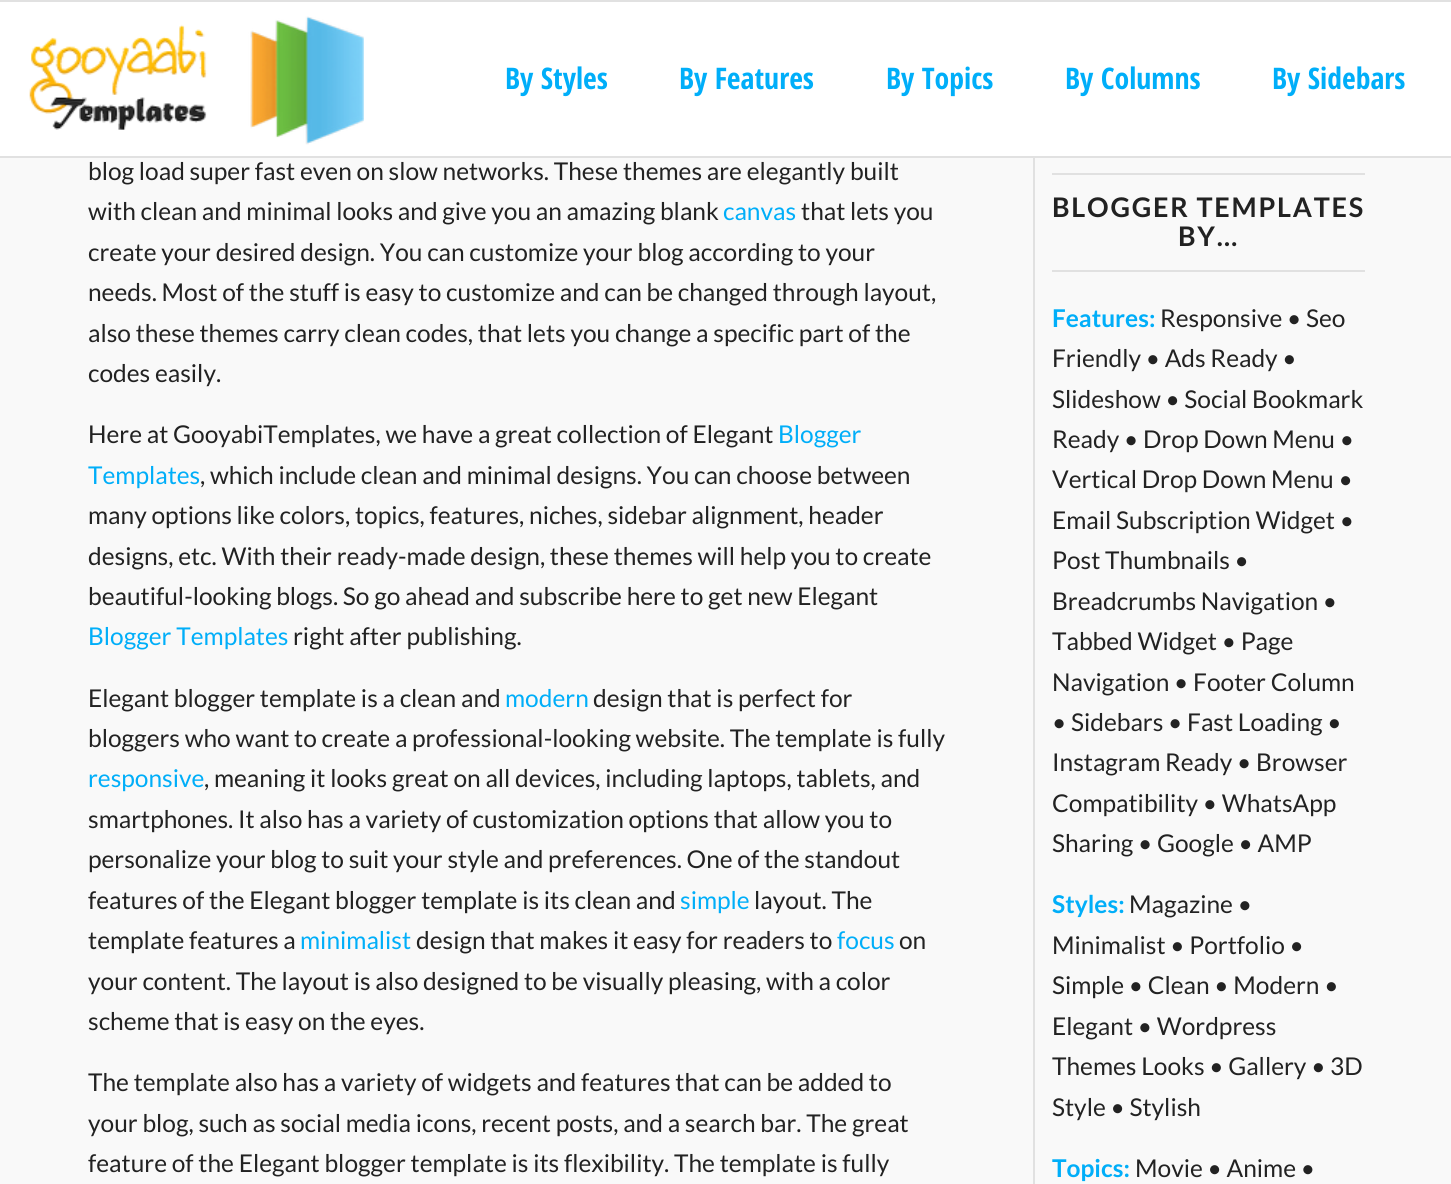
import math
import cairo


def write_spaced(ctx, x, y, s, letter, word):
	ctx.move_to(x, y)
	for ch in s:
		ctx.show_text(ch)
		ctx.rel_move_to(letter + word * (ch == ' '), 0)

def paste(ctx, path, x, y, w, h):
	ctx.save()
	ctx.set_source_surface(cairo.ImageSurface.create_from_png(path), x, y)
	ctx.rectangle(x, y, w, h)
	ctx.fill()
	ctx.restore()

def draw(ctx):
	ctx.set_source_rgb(0.973, 0.973, 0.973)
	ctx.paint()
	ctx.set_source_rgb(1, 1, 1)
	ctx.rectangle(0, 2, 1451, 154)
	ctx.fill()
	ctx.set_source_rgb(0.882, 0.882, 0.882)
	ctx.rectangle(0, 0, 1451, 2)
	ctx.rectangle(0, 156, 1451, 2)
	ctx.fill()
	paste(ctx, 'media/1.png', 29, 16, 335, 129)
	ctx.select_font_face('Open Sans Condensed', cairo.FONT_SLANT_NORMAL, cairo.FONT_WEIGHT_BOLD)
	ctx.set_font_size(29.75)
	ctx.set_source_rgb(0, 0.682, 0.976)
	for x, y, s in [
		(505, 89, 'By Styles'),
		(679, 89, 'By Features'),
		(886, 89, 'By Topics'),
		(1065, 89, 'By Columns'),
		(1272, 89, 'By Sidebars'),
	]:
		ctx.move_to(x, y)
		ctx.show_text(s)
	ctx.set_source_rgb(0.882, 0.882, 0.882)
	ctx.rectangle(1033, 158, 2, 1026)
	ctx.fill()
	ctx.select_font_face('Lato')
	ctx.set_font_size(24.5)
	ctx.set_source_rgb(0.133, 0.133, 0.133)
	ctx.move_to(88, 180)
	ctx.show_text('blog load super fast even on slow networks. These themes are elegantly built')
	ctx.move_to(88, 220)
	ctx.show_text('with clean and minimal looks and give you an amazing blank')
	ctx.set_source_rgb(0, 0.682, 0.976)
	ctx.move_to(723, 220)
	ctx.show_text('canvas')
	ctx.set_source_rgb(0.133, 0.133, 0.133)
	for x, y, s in [
		(801, 220, 'that lets you'),
		(88, 261, 'create your desired design. You can customize your blog according to your'),
		(88, 301, 'needs. Most of the stuff is easy to customize and can be changed through layout,'),
		(88, 342, 'also these themes carry clean codes, that lets you change a specific part of the'),
		(88, 382, 'codes easily.'),
		(88, 443, 'Here at GooyabiTemplates, we have a great collection of Elegant'),
	]:
		ctx.move_to(x, y)
		ctx.show_text(s)
	ctx.set_source_rgb(0, 0.682, 0.976)
	ctx.move_to(778, 443)
	ctx.show_text('Blogger')
	ctx.move_to(88, 484)
	ctx.show_text('Templates')
	ctx.set_source_rgb(0.133, 0.133, 0.133)
	for x, y, s in [
		(200, 484, ', which include clean and minimal designs. You can choose between'),
		(88, 524, 'many options like colors, topics, features, niches, sidebar alignment, header'),
		(88, 565, 'designs, etc. With their ready-made design, these themes will help you to create'),
		(88, 605, 'beautiful-looking blogs. So go ahead and subscribe here to get new Elegant'),
	]:
		ctx.move_to(x, y)
		ctx.show_text(s)
	ctx.set_source_rgb(0, 0.682, 0.976)
	ctx.move_to(88, 645)
	ctx.show_text('Blogger Templates')
	ctx.set_source_rgb(0.133, 0.133, 0.133)
	ctx.move_to(293, 645)
	ctx.show_text('right after publishing.')
	ctx.move_to(88, 707)
	ctx.show_text('Elegant blogger template is a clean and')
	ctx.set_source_rgb(0, 0.682, 0.976)
	ctx.move_to(505, 707)
	ctx.show_text('modern')
	ctx.set_source_rgb(0.133, 0.133, 0.133)
	ctx.move_to(593, 707)
	ctx.show_text('design that is perfect for')
	ctx.move_to(88, 747)
	ctx.show_text('bloggers who want to create a professional-looking website. The template is fully')
	ctx.set_source_rgb(0, 0.682, 0.976)
	ctx.move_to(88, 787)
	ctx.show_text('responsive')
	ctx.set_source_rgb(0.133, 0.133, 0.133)
	for x, y, s in [
		(204, 787, ', meaning it looks great on all devices, including laptops, tablets, and'),
		(88, 828, 'smartphones. It also has a variety of customization options that allow you to'),
		(88, 868, 'personalize your blog to suit your style and preferences. One of the standout'),
		(88, 909, 'features of the Elegant blogger template is its clean and'),
	]:
		ctx.move_to(x, y)
		ctx.show_text(s)
	ctx.set_source_rgb(0, 0.682, 0.976)
	ctx.move_to(680, 909)
	ctx.show_text('simple')
	ctx.set_source_rgb(0.133, 0.133, 0.133)
	ctx.move_to(754, 909)
	ctx.show_text('layout. The')
	ctx.move_to(88, 949)
	ctx.show_text('template features a')
	ctx.set_source_rgb(0, 0.682, 0.976)
	ctx.move_to(300, 949)
	ctx.show_text('minimalist')
	ctx.set_source_rgb(0.133, 0.133, 0.133)
	ctx.move_to(416, 949)
	ctx.show_text('design that makes it easy for readers to')
	ctx.set_source_rgb(0, 0.682, 0.976)
	ctx.move_to(837, 949)
	ctx.show_text('focus')
	ctx.set_source_rgb(0.133, 0.133, 0.133)
	for x, y, s in [
		(899, 949, 'on'),
		(88, 990, 'your content. The layout is also designed to be visually pleasing, with a color'),
		(88, 1030, 'scheme that is easy on the eyes.'),
		(88, 1091, 'The template also has a variety of widgets and features that can be added to'),
		(88, 1132, 'your blog, such as social media icons, recent posts, and a search bar. The great'),
		(88, 1172, 'feature of the Elegant blogger template is its flexibility. The template is fully'),
	]:
		ctx.move_to(x, y)
		ctx.show_text(s)
	ctx.set_source_rgb(0.882, 0.882, 0.882)
	ctx.rectangle(1052, 173, 313, 2)
	ctx.fill()
	ctx.rectangle(1052, 270, 313, 2)
	ctx.fill()
	ctx.select_font_face('Lato', cairo.FONT_SLANT_NORMAL, cairo.FONT_WEIGHT_BOLD)
	ctx.set_font_size(27)
	ctx.set_source_rgb(0.133, 0.133, 0.133)
	write_spaced(ctx, 1052, 217, 'BLOGGER TEMPLATES', 1.75, 0)
	write_spaced(ctx, 1178, 246, 'BY…', 1.75, 0)
	ctx.set_font_size(24.5)
	ctx.set_source_rgb(0, 0.682, 0.976)
	ctx.move_to(1052, 327)
	ctx.show_text('Features:')
	ctx.select_font_face('Lato')
	ctx.set_source_rgb(0.133, 0.133, 0.133)
	for x, y, s in [
		(1160, 327, 'Responsive • Seo'),
		(1052, 367, 'Friendly • Ads Ready •'),
		(1052, 408, 'Slideshow • Social Bookmark'),
		(1052, 448, 'Ready • Drop Down Menu •'),
		(1052, 488, 'Vertical Drop Down Menu •'),
		(1052, 529, 'Email Subscription Widget •'),
		(1052, 569, 'Post Thumbnails •'),
		(1052, 610, 'Breadcrumbs Navigation •'),
		(1052, 650, 'Tabbed Widget • Page'),
		(1052, 691, 'Navigation • Footer Column'),
		(1052, 731, '• Sidebars • Fast Loading •'),
		(1052, 771, 'Instagram Ready • Browser'),
		(1052, 812, 'Compatibility • WhatsApp'),
		(1052, 852, 'Sharing • Google • AMP'),
	]:
		ctx.move_to(x, y)
		ctx.show_text(s)
	ctx.select_font_face('Lato', cairo.FONT_SLANT_NORMAL, cairo.FONT_WEIGHT_BOLD)
	ctx.set_source_rgb(0, 0.682, 0.976)
	ctx.move_to(1052, 913)
	ctx.show_text('Styles:')
	ctx.select_font_face('Lato')
	ctx.set_source_rgb(0.133, 0.133, 0.133)
	for x, y, s in [
		(1129, 913, 'Magazine •'),
		(1052, 954, 'Minimalist • Portfolio •'),
		(1052, 994, 'Simple • Clean • Modern •'),
		(1052, 1035, 'Elegant • Wordpress'),
		(1052, 1075, 'Themes Looks • Gallery • 3D'),
		(1052, 1116, 'Style • Stylish'),
	]:
		ctx.move_to(x, y)
		ctx.show_text(s)
	ctx.select_font_face('Lato', cairo.FONT_SLANT_NORMAL, cairo.FONT_WEIGHT_BOLD)
	ctx.set_source_rgb(0, 0.682, 0.976)
	ctx.move_to(1052, 1177)
	ctx.show_text('Topics:')
	ctx.select_font_face('Lato')
	ctx.set_source_rgb(0.133, 0.133, 0.133)
	ctx.move_to(1135, 1177)
	ctx.show_text('Movie • Anime •')


surface = cairo.ImageSurface(cairo.FORMAT_RGB24, 1451, 1184)
ctx = cairo.Context(surface)
options = cairo.FontOptions()
options.set_hint_metrics(cairo.HINT_METRICS_OFF)
options.set_hint_style(cairo.HINT_STYLE_NONE)
ctx.set_font_options(options)
ctx.set_miter_limit(4)
draw(ctx)
surface.write_to_png('image.png')
